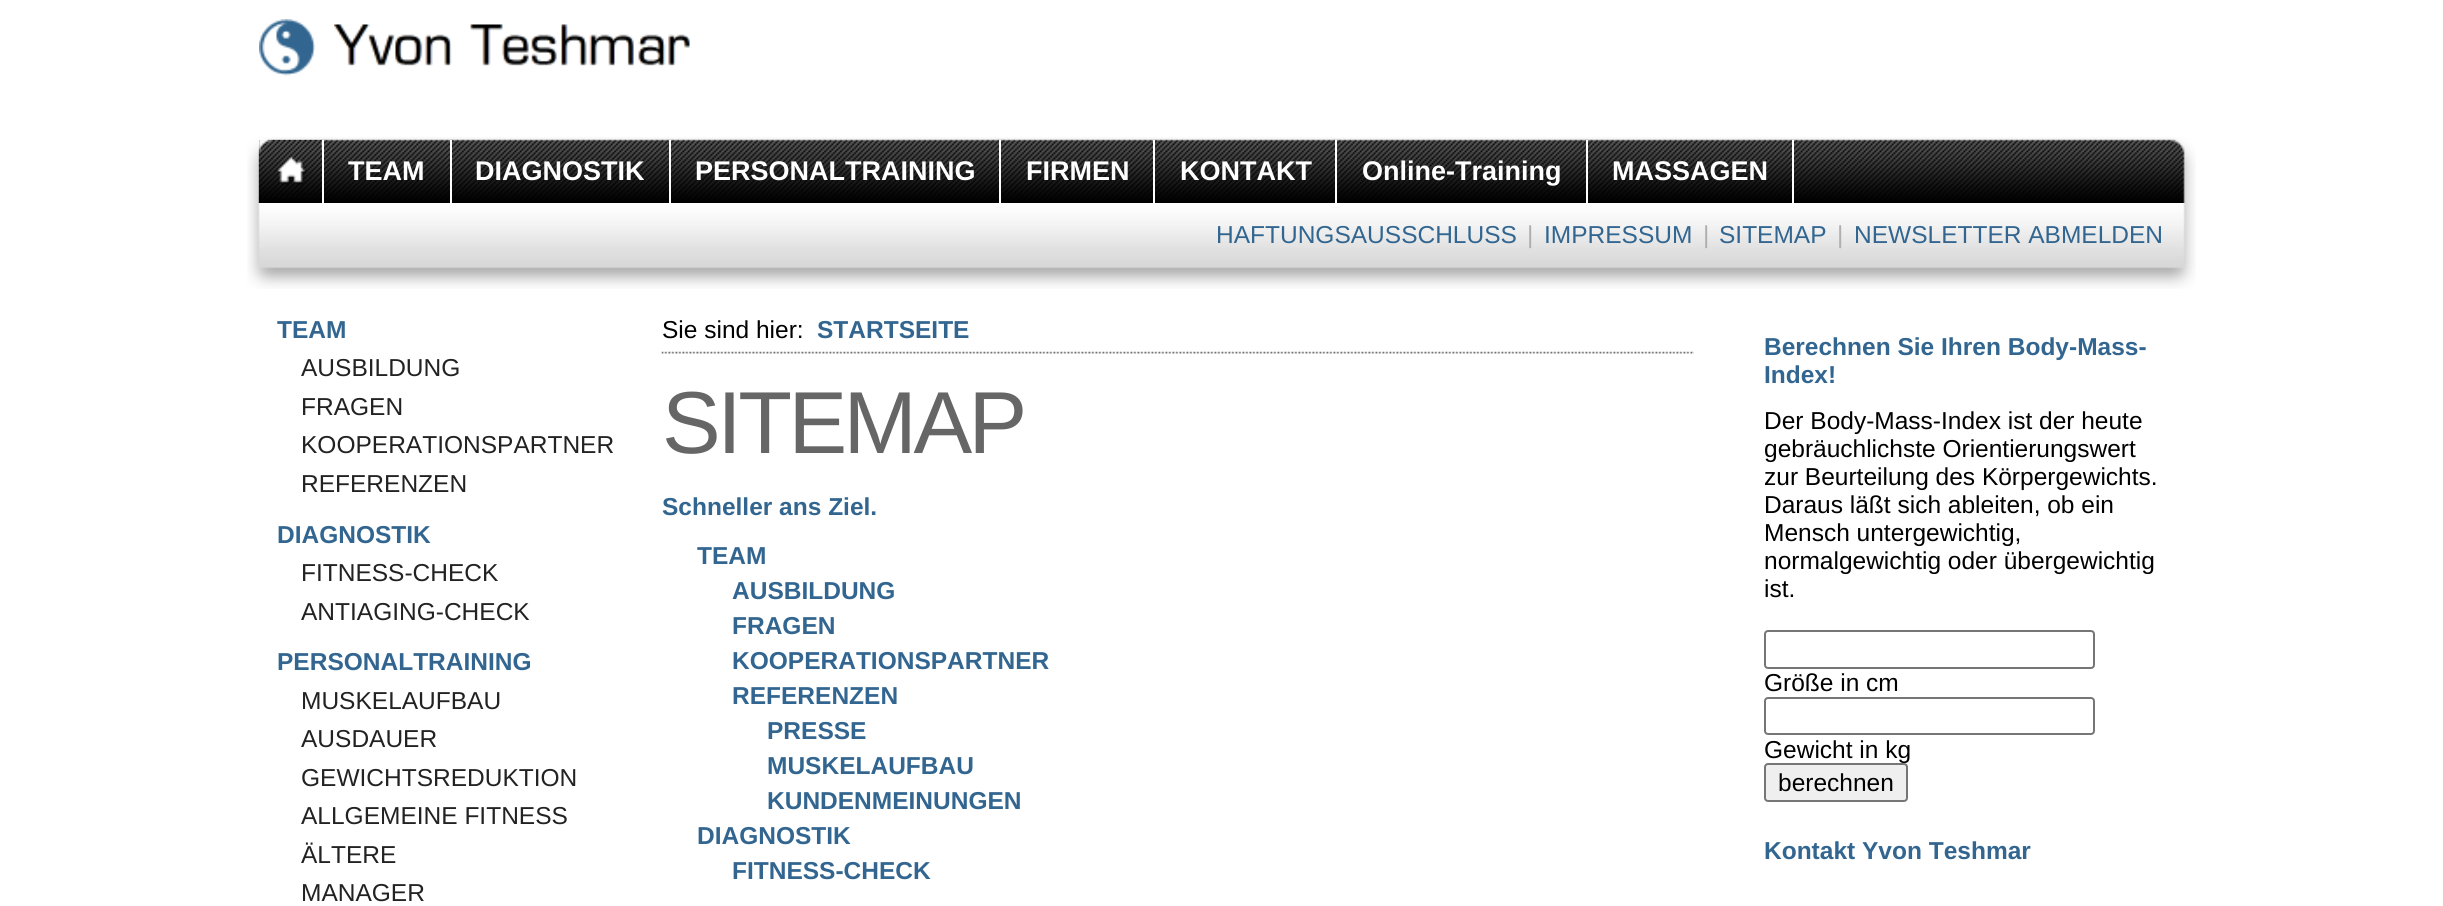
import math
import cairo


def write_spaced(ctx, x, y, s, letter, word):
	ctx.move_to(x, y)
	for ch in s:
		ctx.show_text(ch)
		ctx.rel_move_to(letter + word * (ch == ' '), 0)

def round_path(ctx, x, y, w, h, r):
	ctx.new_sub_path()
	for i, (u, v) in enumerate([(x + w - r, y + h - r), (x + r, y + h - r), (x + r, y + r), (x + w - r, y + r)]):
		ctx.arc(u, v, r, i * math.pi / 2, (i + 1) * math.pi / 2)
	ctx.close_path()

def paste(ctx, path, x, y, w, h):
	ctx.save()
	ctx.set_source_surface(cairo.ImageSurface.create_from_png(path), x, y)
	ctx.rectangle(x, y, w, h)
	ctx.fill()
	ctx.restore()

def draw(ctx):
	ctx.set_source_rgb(1, 1, 1)
	ctx.paint()
	paste(ctx, 'media/1.png', 259, 19, 56, 57)
	paste(ctx, 'media/2.png', 334, 24, 356, 42)
	paste(ctx, 'media/3.png', 247, 137, 1949, 66)
	paste(ctx, 'media/4.png', 259, 140, 63, 63)
	ctx.set_source_rgb(1, 1, 1)
	ctx.rectangle(322, 140, 2, 63)
	ctx.fill()
	ctx.rectangle(450, 140, 2, 63)
	ctx.fill()
	ctx.select_font_face('Liberation Sans', cairo.FONT_SLANT_NORMAL, cairo.FONT_WEIGHT_BOLD)
	ctx.set_font_size(27)
	ctx.move_to(348, 180)
	ctx.show_text('TEAM')
	ctx.rectangle(669, 140, 2, 63)
	ctx.fill()
	ctx.move_to(475, 180)
	ctx.show_text('DIAGNOSTIK')
	ctx.rectangle(999, 140, 2, 63)
	ctx.fill()
	ctx.move_to(695, 180)
	ctx.show_text('PERSONALTRAINING')
	ctx.rectangle(1153, 140, 2, 63)
	ctx.fill()
	ctx.move_to(1026, 180)
	ctx.show_text('FIRMEN')
	ctx.rectangle(1335, 140, 2, 63)
	ctx.fill()
	ctx.move_to(1180, 180)
	ctx.show_text('KONTAKT')
	ctx.rectangle(1586, 140, 2, 63)
	ctx.fill()
	ctx.move_to(1362, 180)
	ctx.show_text('Online-Training')
	ctx.rectangle(1792, 140, 2, 63)
	ctx.fill()
	ctx.move_to(1612, 180)
	ctx.show_text('MASSAGEN')
	paste(ctx, 'media/5.png', 247, 203, 1949, 86)
	ctx.select_font_face('Liberation Sans')
	ctx.set_font_size(24.5)
	ctx.set_source_rgb(0.196, 0.4, 0.565)
	ctx.move_to(1216, 243)
	ctx.show_text('HAFTUNGSAUSSCHLUSS')
	ctx.set_source_rgb(0.686, 0.686, 0.686)
	ctx.move_to(1527, 243)
	ctx.show_text('|')
	ctx.set_source_rgb(0.196, 0.4, 0.565)
	ctx.move_to(1544, 243)
	ctx.show_text('IMPRESSUM')
	ctx.set_source_rgb(0.686, 0.686, 0.686)
	ctx.move_to(1703, 243)
	ctx.show_text('|')
	ctx.set_source_rgb(0.196, 0.4, 0.565)
	ctx.move_to(1719, 243)
	ctx.show_text('SITEMAP')
	ctx.set_source_rgb(0.686, 0.686, 0.686)
	ctx.move_to(1837, 243)
	ctx.show_text('|')
	ctx.set_source_rgb(0.196, 0.4, 0.565)
	ctx.move_to(1854, 243)
	ctx.show_text('NEWSLETTER ABMELDEN')
	ctx.select_font_face('Liberation Sans', cairo.FONT_SLANT_NORMAL, cairo.FONT_WEIGHT_BOLD)
	ctx.move_to(277, 338)
	ctx.show_text('TEAM')
	ctx.select_font_face('Liberation Sans')
	ctx.set_source_rgb(0.133, 0.133, 0.133)
	for x, y, s in [
		(301, 376, 'AUSBILDUNG'),
		(301, 415, 'FRAGEN'),
		(301, 453, 'KOOPERATIONSPARTNER'),
		(301, 492, 'REFERENZEN'),
	]:
		ctx.move_to(x, y)
		ctx.show_text(s)
	ctx.select_font_face('Liberation Sans', cairo.FONT_SLANT_NORMAL, cairo.FONT_WEIGHT_BOLD)
	ctx.set_source_rgb(0.196, 0.4, 0.565)
	ctx.move_to(277, 543)
	ctx.show_text('DIAGNOSTIK')
	ctx.select_font_face('Liberation Sans')
	ctx.set_source_rgb(0.133, 0.133, 0.133)
	ctx.move_to(301, 581)
	ctx.show_text('FITNESS-CHECK')
	ctx.move_to(301, 620)
	ctx.show_text('ANTIAGING-CHECK')
	ctx.select_font_face('Liberation Sans', cairo.FONT_SLANT_NORMAL, cairo.FONT_WEIGHT_BOLD)
	ctx.set_source_rgb(0.196, 0.4, 0.565)
	ctx.move_to(277, 670)
	ctx.show_text('PERSONALTRAINING')
	ctx.select_font_face('Liberation Sans')
	ctx.set_source_rgb(0.133, 0.133, 0.133)
	for x, y, s in [
		(301, 709, 'MUSKELAUFBAU'),
		(301, 747, 'AUSDAUER'),
		(301, 786, 'GEWICHTSREDUKTION'),
		(301, 824, 'ALLGEMEINE FITNESS'),
		(301, 863, 'ÄLTERE'),
		(301, 901, 'MANAGER'),
	]:
		ctx.move_to(x, y)
		ctx.show_text(s)
	paste(ctx, 'media/6.png', 661, 351, 1033, 3)
	ctx.set_source_rgb(0, 0, 0)
	ctx.move_to(662, 338)
	ctx.show_text('Sie sind hier:')
	ctx.select_font_face('Liberation Sans', cairo.FONT_SLANT_NORMAL, cairo.FONT_WEIGHT_BOLD)
	ctx.set_source_rgb(0.196, 0.4, 0.565)
	ctx.move_to(817, 338)
	ctx.show_text('STARTSEITE')
	ctx.select_font_face('Liberation Sans')
	ctx.set_font_size(88)
	ctx.set_source_rgb(0.4, 0.4, 0.4)
	write_spaced(ctx, 662, 453, 'SITEMAP', -3.5, 0)
	ctx.select_font_face('Liberation Sans', cairo.FONT_SLANT_NORMAL, cairo.FONT_WEIGHT_BOLD)
	ctx.set_font_size(24.5)
	ctx.set_source_rgb(0.196, 0.4, 0.565)
	for x, y, s in [
		(662, 515, 'Schneller ans Ziel.'),
		(697, 564, 'TEAM'),
		(732, 599, 'AUSBILDUNG'),
		(732, 634, 'FRAGEN'),
		(732, 669, 'KOOPERATIONSPARTNER'),
		(732, 704, 'REFERENZEN'),
		(767, 739, 'PRESSE'),
		(767, 774, 'MUSKELAUFBAU'),
		(767, 809, 'KUNDENMEINUNGEN'),
		(697, 844, 'DIAGNOSTIK'),
		(732, 879, 'FITNESS-CHECK'),
		(1764, 355, 'Berechnen Sie Ihren Body-Mass-'),
		(1764, 383, 'Index!'),
	]:
		ctx.move_to(x, y)
		ctx.show_text(s)
	ctx.select_font_face('Liberation Sans')
	ctx.set_source_rgb(0, 0, 0)
	for x, y, s in [
		(1764, 429, 'Der Body-Mass-Index ist der heute'),
		(1764, 457, 'gebräuchlichste Orientierungswert'),
		(1764, 485, 'zur Beurteilung des Körpergewichts.'),
		(1764, 513, 'Daraus läßt sich ableiten, ob ein'),
		(1764, 541, 'Mensch untergewichtig,'),
		(1764, 569, 'normalgewichtig oder übergewichtig'),
		(1764, 597, 'ist.'),
	]:
		ctx.move_to(x, y)
		ctx.show_text(s)
	round_path(ctx, 1765, 631, 329, 37, 3)
	ctx.set_source_rgb(0.463, 0.463, 0.463)
	ctx.stroke()
	ctx.set_source_rgb(0, 0, 0)
	ctx.move_to(1764, 691)
	ctx.show_text('Größe in cm')
	round_path(ctx, 1765, 698, 329, 36, 3)
	ctx.set_source_rgb(0.463, 0.463, 0.463)
	ctx.stroke()
	ctx.set_source_rgb(0, 0, 0)
	ctx.move_to(1764, 758)
	ctx.show_text('Gewicht in kg')
	ctx.set_source_rgb(0.937, 0.937, 0.937)
	round_path(ctx, 1765, 764, 142, 37, 3)
	ctx.fill_preserve()
	ctx.set_source_rgb(0.463, 0.463, 0.463)
	ctx.stroke()
	ctx.set_source_rgb(0, 0, 0)
	ctx.move_to(1778, 791)
	ctx.show_text('berechnen')
	ctx.select_font_face('Liberation Sans', cairo.FONT_SLANT_NORMAL, cairo.FONT_WEIGHT_BOLD)
	ctx.set_source_rgb(0.196, 0.4, 0.565)
	ctx.move_to(1764, 859)
	ctx.show_text('Kontakt Yvon Teshmar')


surface = cairo.ImageSurface(cairo.FORMAT_RGB24, 2443, 906)
ctx = cairo.Context(surface)
options = cairo.FontOptions()
options.set_hint_metrics(cairo.HINT_METRICS_OFF)
options.set_hint_style(cairo.HINT_STYLE_NONE)
ctx.set_font_options(options)
ctx.set_miter_limit(4)
draw(ctx)
surface.write_to_png('image.png')
